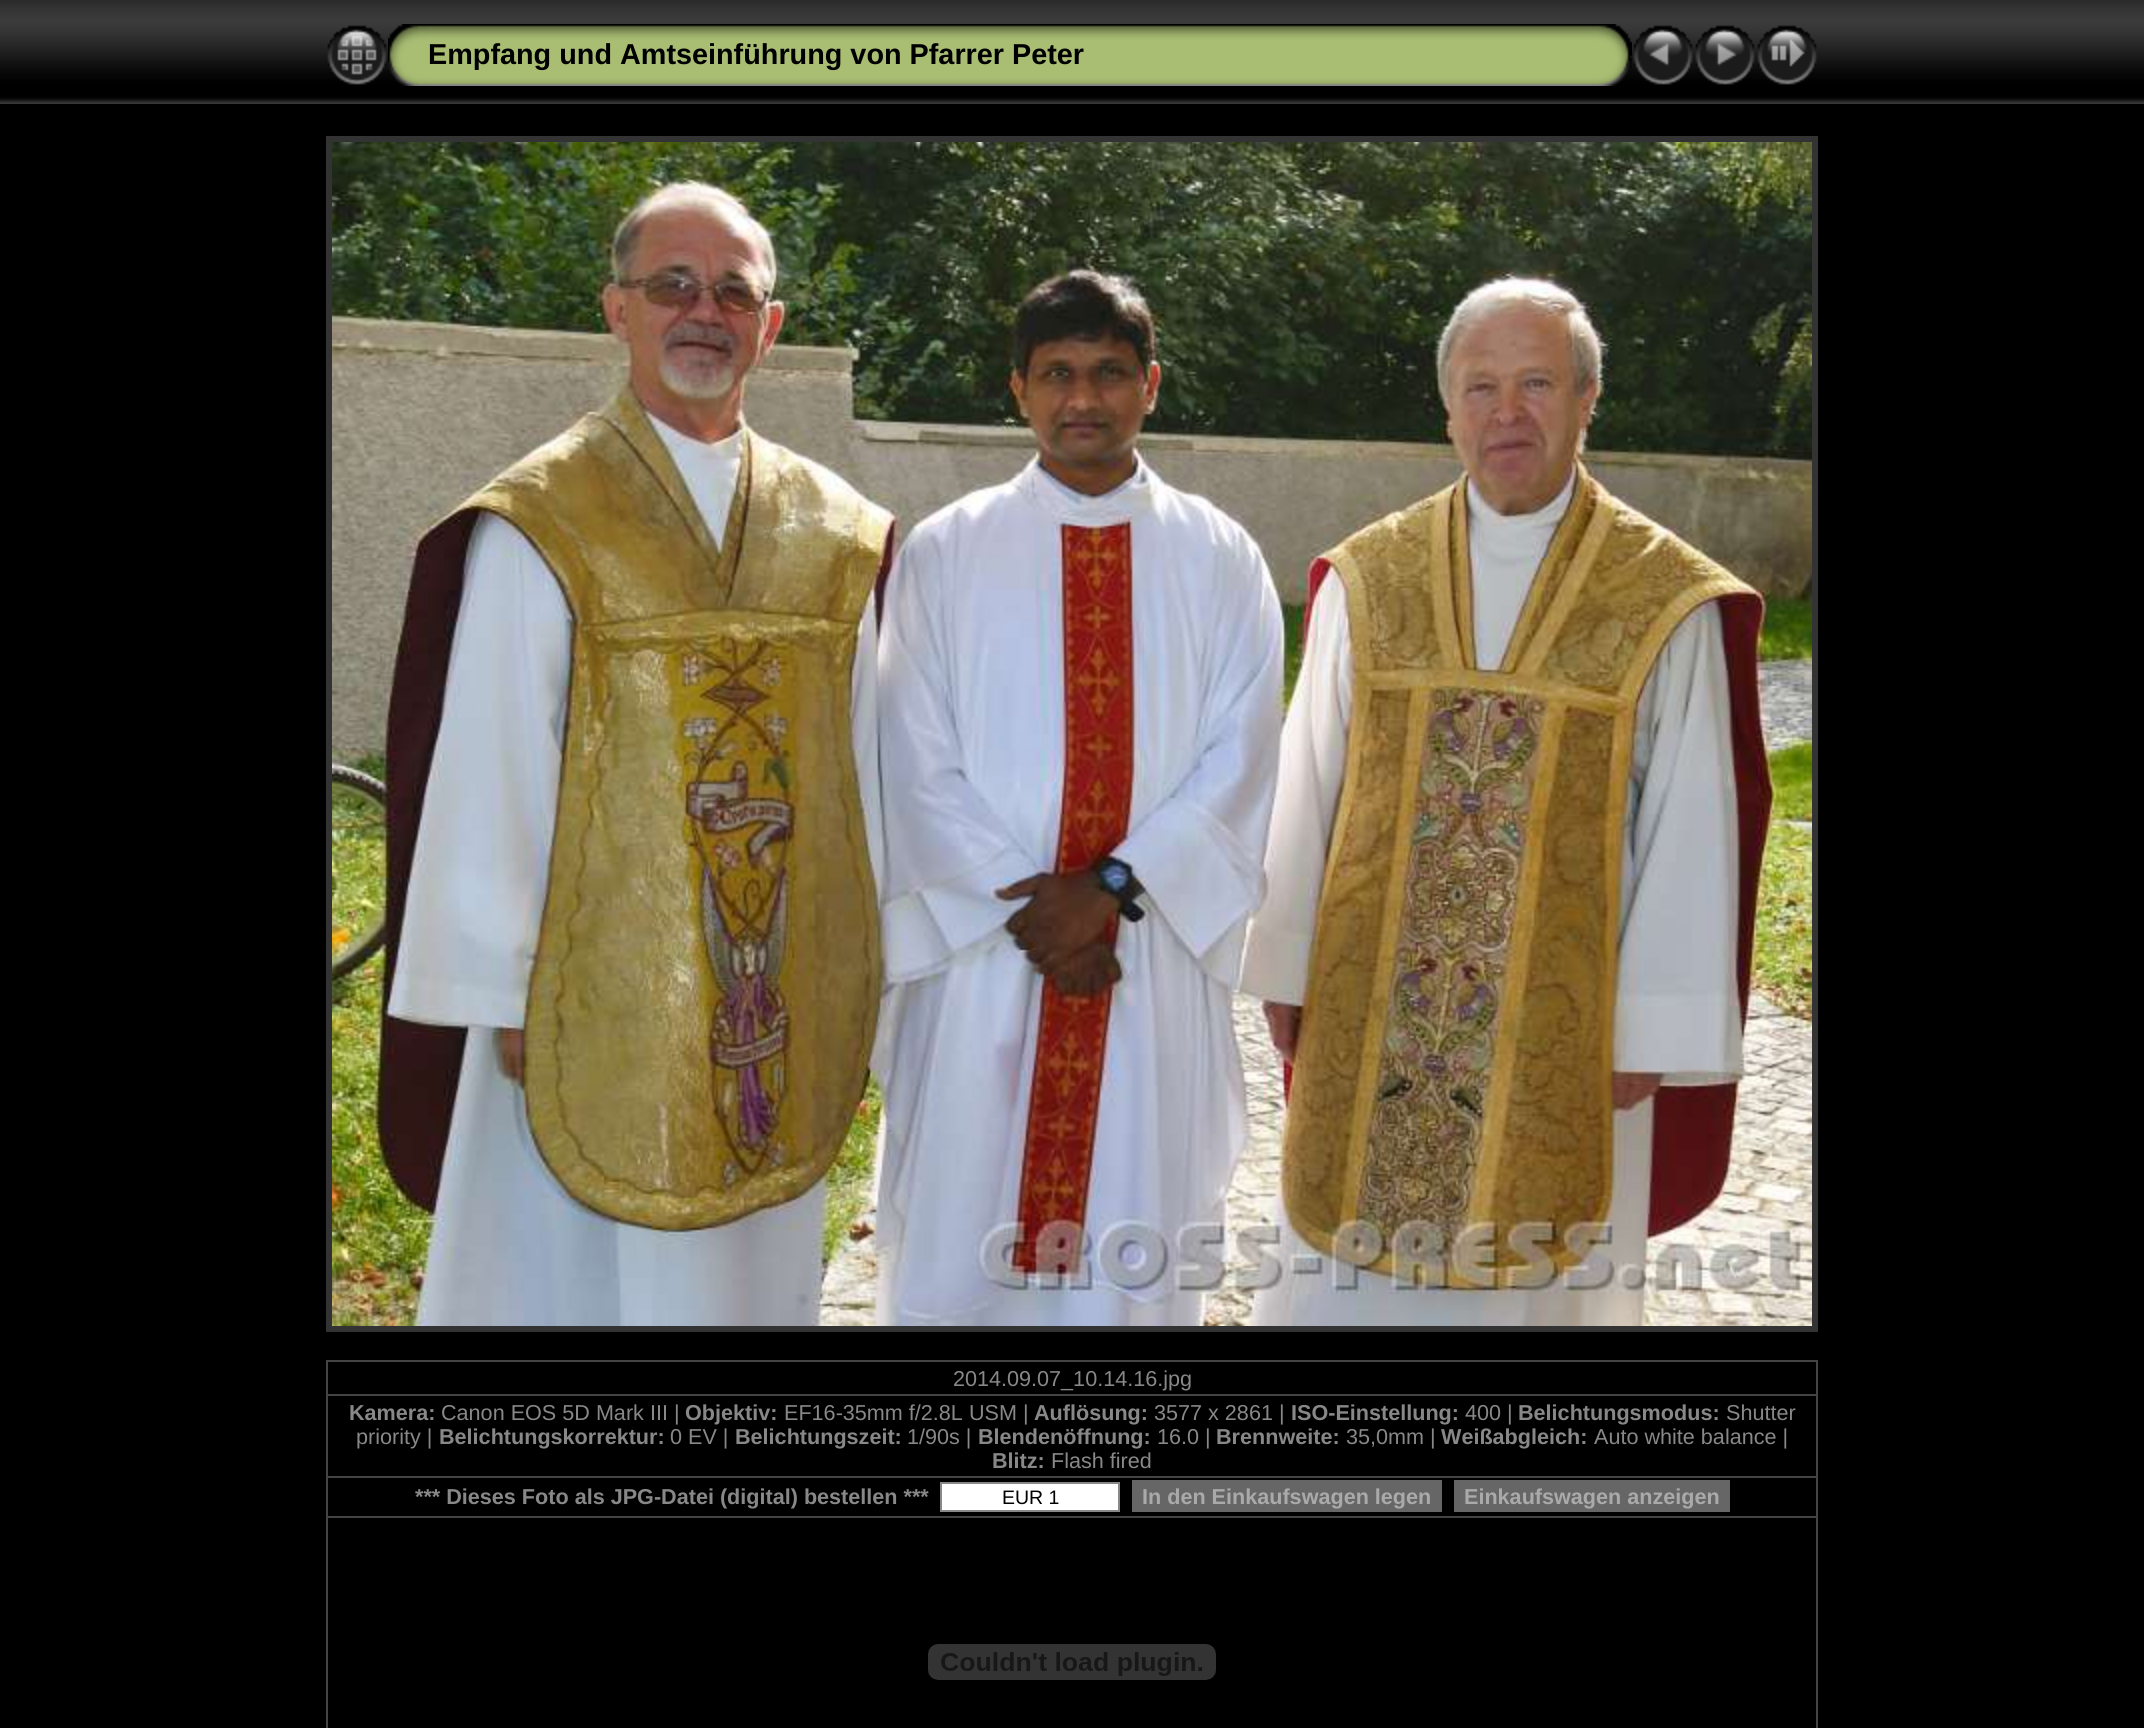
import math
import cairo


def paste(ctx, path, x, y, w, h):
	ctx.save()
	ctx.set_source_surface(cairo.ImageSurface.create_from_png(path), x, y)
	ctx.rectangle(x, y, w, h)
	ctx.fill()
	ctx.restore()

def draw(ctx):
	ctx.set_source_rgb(0, 0, 0)
	ctx.paint()
	paste(ctx, 'media/1.png', 0, 0, 2144, 104)
	paste(ctx, 'media/2.png', 327, 25, 60, 60)
	paste(ctx, 'media/3.png', 388, 24, 40, 62)
	paste(ctx, 'media/4.png', 428, 24, 1164, 62)
	ctx.select_font_face('Liberation Sans', cairo.FONT_SLANT_NORMAL, cairo.FONT_WEIGHT_BOLD)
	ctx.set_font_size(28.8)
	ctx.set_source_rgb(0, 0, 0)
	ctx.move_to(428, 64)
	ctx.show_text('Empfang und Amtseinführung von Pfarrer Peter')
	paste(ctx, 'media/5.png', 1592, 24, 40, 62)
	paste(ctx, 'media/6.png', 1633, 25, 60, 60)
	paste(ctx, 'media/7.png', 1695, 25, 60, 60)
	paste(ctx, 'media/8.png', 1757, 25, 60, 60)
	ctx.rectangle(329, 139, 1486, 1190)
	ctx.set_source_rgb(0.2, 0.2, 0.2)
	ctx.set_line_width(6)
	ctx.stroke()
	paste(ctx, 'media/9.png', 332, 142, 1480, 1184)
	ctx.set_source_rgb(0.267, 0.267, 0.267)
	ctx.rectangle(326, 1360, 1492, 2)
	ctx.rectangle(1816, 1360, 2, 368)
	ctx.rectangle(326, 1360, 2, 368)
	ctx.fill()
	ctx.select_font_face('Liberation Sans')
	ctx.set_font_size(21.6)
	ctx.set_source_rgb(0.533, 0.533, 0.533)
	ctx.move_to(953, 1386)
	ctx.show_text('2014.09.07_10.14.16.jpg')
	ctx.set_source_rgb(0.267, 0.267, 0.267)
	ctx.rectangle(326, 1394, 1492, 2)
	ctx.fill()
	ctx.select_font_face('Liberation Sans', cairo.FONT_SLANT_NORMAL, cairo.FONT_WEIGHT_BOLD)
	ctx.set_source_rgb(0.533, 0.533, 0.533)
	ctx.move_to(349, 1420)
	ctx.show_text('Kamera:')
	ctx.select_font_face('Liberation Sans')
	ctx.move_to(441, 1420)
	ctx.show_text('Canon EOS 5D Mark III |')
	ctx.select_font_face('Liberation Sans', cairo.FONT_SLANT_NORMAL, cairo.FONT_WEIGHT_BOLD)
	ctx.move_to(685, 1420)
	ctx.show_text('Objektiv:')
	ctx.select_font_face('Liberation Sans')
	ctx.move_to(784, 1420)
	ctx.show_text('EF16-35mm f/2.8L USM |')
	ctx.select_font_face('Liberation Sans', cairo.FONT_SLANT_NORMAL, cairo.FONT_WEIGHT_BOLD)
	ctx.move_to(1034, 1420)
	ctx.show_text('Auflösung:')
	ctx.select_font_face('Liberation Sans')
	ctx.move_to(1154, 1420)
	ctx.show_text('3577 x 2861 |')
	ctx.select_font_face('Liberation Sans', cairo.FONT_SLANT_NORMAL, cairo.FONT_WEIGHT_BOLD)
	ctx.move_to(1291, 1420)
	ctx.show_text('ISO-Einstellung:')
	ctx.select_font_face('Liberation Sans')
	ctx.move_to(1465, 1420)
	ctx.show_text('400 |')
	ctx.select_font_face('Liberation Sans', cairo.FONT_SLANT_NORMAL, cairo.FONT_WEIGHT_BOLD)
	ctx.move_to(1518, 1420)
	ctx.show_text('Belichtungsmodus:')
	ctx.select_font_face('Liberation Sans')
	ctx.move_to(1726, 1420)
	ctx.show_text('Shutter')
	ctx.move_to(356, 1444)
	ctx.show_text('priority |')
	ctx.select_font_face('Liberation Sans', cairo.FONT_SLANT_NORMAL, cairo.FONT_WEIGHT_BOLD)
	ctx.move_to(439, 1444)
	ctx.show_text('Belichtungskorrektur:')
	ctx.select_font_face('Liberation Sans')
	ctx.move_to(670, 1444)
	ctx.show_text('0 EV |')
	ctx.select_font_face('Liberation Sans', cairo.FONT_SLANT_NORMAL, cairo.FONT_WEIGHT_BOLD)
	ctx.move_to(735, 1444)
	ctx.show_text('Belichtungszeit:')
	ctx.select_font_face('Liberation Sans')
	ctx.move_to(907, 1444)
	ctx.show_text('1/90s |')
	ctx.select_font_face('Liberation Sans', cairo.FONT_SLANT_NORMAL, cairo.FONT_WEIGHT_BOLD)
	ctx.move_to(978, 1444)
	ctx.show_text('Blendenöffnung:')
	ctx.select_font_face('Liberation Sans')
	ctx.move_to(1157, 1444)
	ctx.show_text('16.0 |')
	ctx.select_font_face('Liberation Sans', cairo.FONT_SLANT_NORMAL, cairo.FONT_WEIGHT_BOLD)
	ctx.move_to(1216, 1444)
	ctx.show_text('Brennweite:')
	ctx.select_font_face('Liberation Sans')
	ctx.move_to(1346, 1444)
	ctx.show_text('35,0mm |')
	ctx.select_font_face('Liberation Sans', cairo.FONT_SLANT_NORMAL, cairo.FONT_WEIGHT_BOLD)
	ctx.move_to(1441, 1444)
	ctx.show_text('Weißabgleich:')
	ctx.select_font_face('Liberation Sans')
	ctx.move_to(1594, 1444)
	ctx.show_text('Auto white balance |')
	ctx.select_font_face('Liberation Sans', cairo.FONT_SLANT_NORMAL, cairo.FONT_WEIGHT_BOLD)
	ctx.move_to(992, 1468)
	ctx.show_text('Blitz:')
	ctx.select_font_face('Liberation Sans')
	ctx.move_to(1051, 1468)
	ctx.show_text('Flash fired')
	ctx.set_source_rgb(0.267, 0.267, 0.267)
	ctx.rectangle(326, 1476, 1492, 2)
	ctx.fill()
	ctx.select_font_face('Liberation Sans', cairo.FONT_SLANT_NORMAL, cairo.FONT_WEIGHT_BOLD)
	ctx.set_source_rgb(0.533, 0.533, 0.533)
	ctx.move_to(415, 1504)
	ctx.show_text('*** Dieses Foto als JPG-Datei (digital) bestellen ***')
	ctx.set_source_rgb(1, 1, 1)
	ctx.rectangle(941, 1483, 178, 28)
	ctx.fill_preserve()
	ctx.set_source_rgb(0.533, 0.533, 0.533)
	ctx.set_line_width(2)
	ctx.stroke()
	ctx.select_font_face('Liberation Sans')
	ctx.set_font_size(19.5)
	ctx.set_source_rgb(0, 0, 0)
	ctx.move_to(1002, 1504)
	ctx.show_text('EUR 1')
	ctx.set_source_rgb(0.4, 0.4, 0.4)
	ctx.rectangle(1132, 1480, 310, 32)
	ctx.fill()
	ctx.select_font_face('Liberation Sans', cairo.FONT_SLANT_NORMAL, cairo.FONT_WEIGHT_BOLD)
	ctx.set_font_size(21.6)
	ctx.set_source_rgb(0.667, 0.667, 0.667)
	ctx.move_to(1142, 1504)
	ctx.show_text('In den Einkaufswagen legen')
	ctx.set_source_rgb(0.4, 0.4, 0.4)
	ctx.rectangle(1454, 1480, 276, 32)
	ctx.fill()
	ctx.set_source_rgb(0.667, 0.667, 0.667)
	ctx.move_to(1464, 1504)
	ctx.show_text('Einkaufswagen anzeigen')
	ctx.set_source_rgb(0.267, 0.267, 0.267)
	ctx.rectangle(326, 1516, 1492, 2)
	ctx.fill()
	paste(ctx, 'media/10.png', 928, 1644, 288, 36)


surface = cairo.ImageSurface(cairo.FORMAT_RGB24, 2144, 1728)
ctx = cairo.Context(surface)
options = cairo.FontOptions()
options.set_hint_metrics(cairo.HINT_METRICS_OFF)
options.set_hint_style(cairo.HINT_STYLE_NONE)
ctx.set_font_options(options)
ctx.set_miter_limit(4)
draw(ctx)
surface.write_to_png('image.png')
